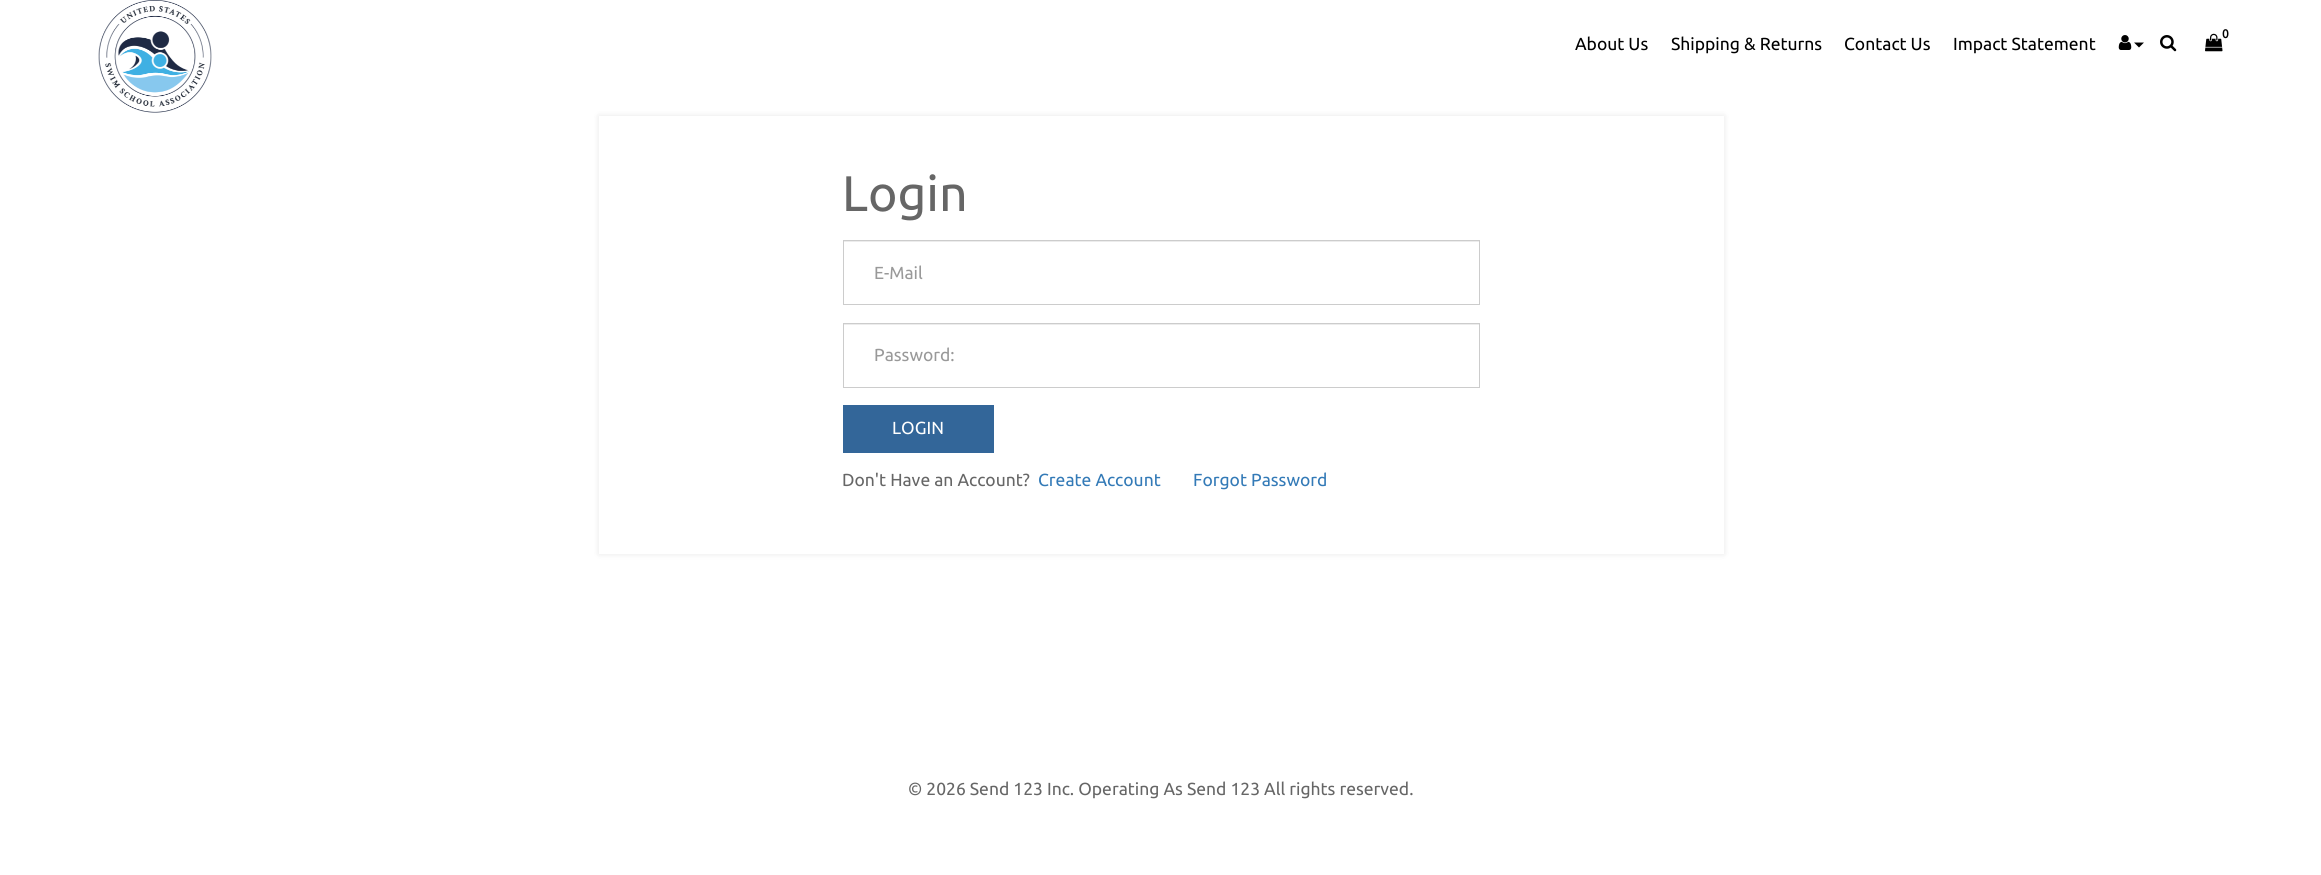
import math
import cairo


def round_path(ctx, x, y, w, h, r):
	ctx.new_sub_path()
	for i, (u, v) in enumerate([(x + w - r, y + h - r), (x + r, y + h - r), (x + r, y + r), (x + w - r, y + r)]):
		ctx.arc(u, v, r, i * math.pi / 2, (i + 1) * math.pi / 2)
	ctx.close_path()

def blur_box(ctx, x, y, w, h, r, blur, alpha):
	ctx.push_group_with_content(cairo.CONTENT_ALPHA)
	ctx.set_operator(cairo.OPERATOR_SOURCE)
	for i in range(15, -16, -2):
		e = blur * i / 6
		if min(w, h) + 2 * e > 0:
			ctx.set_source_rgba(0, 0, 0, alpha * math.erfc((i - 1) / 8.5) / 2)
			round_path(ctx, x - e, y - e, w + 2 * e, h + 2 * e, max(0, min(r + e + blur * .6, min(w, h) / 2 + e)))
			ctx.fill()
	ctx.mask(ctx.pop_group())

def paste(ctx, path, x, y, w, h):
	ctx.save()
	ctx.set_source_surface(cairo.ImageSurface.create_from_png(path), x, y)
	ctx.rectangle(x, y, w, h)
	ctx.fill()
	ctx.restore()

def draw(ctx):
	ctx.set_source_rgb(1, 1, 1)
	ctx.paint()
	paste(ctx, 'media/1.png', 98, 0, 114, 113)
	paste(ctx, 'media/2.png', 2205, 33, 18, 19)
	ctx.select_font_face('Ubuntu', cairo.FONT_SLANT_NORMAL, cairo.FONT_WEIGHT_BOLD)
	ctx.set_font_size(12)
	ctx.set_source_rgb(0, 0, 0)
	ctx.move_to(2222, 38)
	ctx.show_text('0')
	paste(ctx, 'media/3.png', 2118, 35, 14, 15)
	ctx.new_path()
	ctx.move_to(2134, 42.5)
	ctx.line_to(2144, 42.5)
	ctx.line_to(2139, 47.5)
	ctx.close_path()
	ctx.fill()
	paste(ctx, 'media/4.png', 2160, 35, 17, 17)
	ctx.select_font_face('Ubuntu')
	ctx.set_font_size(17.5)
	for x, y, s in [
		(1575, 50, 'About Us'),
		(1671, 50, 'Shipping & Returns'),
		(1844, 50, 'Contact Us'),
		(1953, 50, 'Impact Statement'),
	]:
		ctx.move_to(x, y)
		ctx.show_text(s)
	ctx.set_source_rgb(0, 0, 0)
	blur_box(ctx, 599, 116, 1125, 438, 0, 3, 0.1)
	ctx.set_source_rgb(1, 1, 1)
	ctx.rectangle(599, 116, 1125, 438)
	ctx.fill()
	ctx.set_font_size(50)
	ctx.set_source_rgb(0.4, 0.4, 0.4)
	ctx.move_to(842, 211)
	ctx.show_text('Login')
	ctx.set_source_rgb(0.925, 0.925, 0.925)
	ctx.rectangle(844, 241, 635, 1)
	ctx.fill()
	ctx.rectangle(843.5, 240.5, 636, 64)
	ctx.set_source_rgb(0.8, 0.8, 0.8)
	ctx.set_line_width(1)
	ctx.stroke()
	ctx.set_font_size(17.5)
	ctx.set_source_rgb(0.6, 0.6, 0.6)
	ctx.move_to(874, 279)
	ctx.show_text('E-Mail')
	ctx.set_source_rgb(0.925, 0.925, 0.925)
	ctx.rectangle(844, 324, 635, 1)
	ctx.fill()
	ctx.rectangle(843.5, 323.5, 636, 64)
	ctx.set_source_rgb(0.8, 0.8, 0.8)
	ctx.stroke()
	ctx.set_source_rgb(0.6, 0.6, 0.6)
	ctx.move_to(874, 361)
	ctx.show_text('Password:')
	ctx.set_source_rgb(0.2, 0.4, 0.6)
	ctx.rectangle(843, 405, 151, 48)
	ctx.fill()
	ctx.set_source_rgb(1, 1, 1)
	ctx.move_to(892, 434)
	ctx.show_text('LOGIN')
	ctx.set_source_rgb(0.4, 0.4, 0.4)
	ctx.move_to(842, 486)
	ctx.show_text('Don\'t Have an Account?')
	ctx.set_source_rgb(0.2, 0.478, 0.718)
	ctx.move_to(1038, 486)
	ctx.show_text('Create Account')
	ctx.move_to(1193, 486)
	ctx.show_text('Forgot Password')
	ctx.set_source_rgb(0.4, 0.4, 0.4)
	ctx.move_to(908, 795)
	ctx.show_text('© 2026 Send 123 Inc. Operating As Send 123 All rights reserved.')


surface = cairo.ImageSurface(cairo.FORMAT_RGB24, 2321, 875)
ctx = cairo.Context(surface)
options = cairo.FontOptions()
options.set_hint_metrics(cairo.HINT_METRICS_OFF)
options.set_hint_style(cairo.HINT_STYLE_NONE)
ctx.set_font_options(options)
ctx.set_miter_limit(4)
draw(ctx)
surface.write_to_png('image.png')
